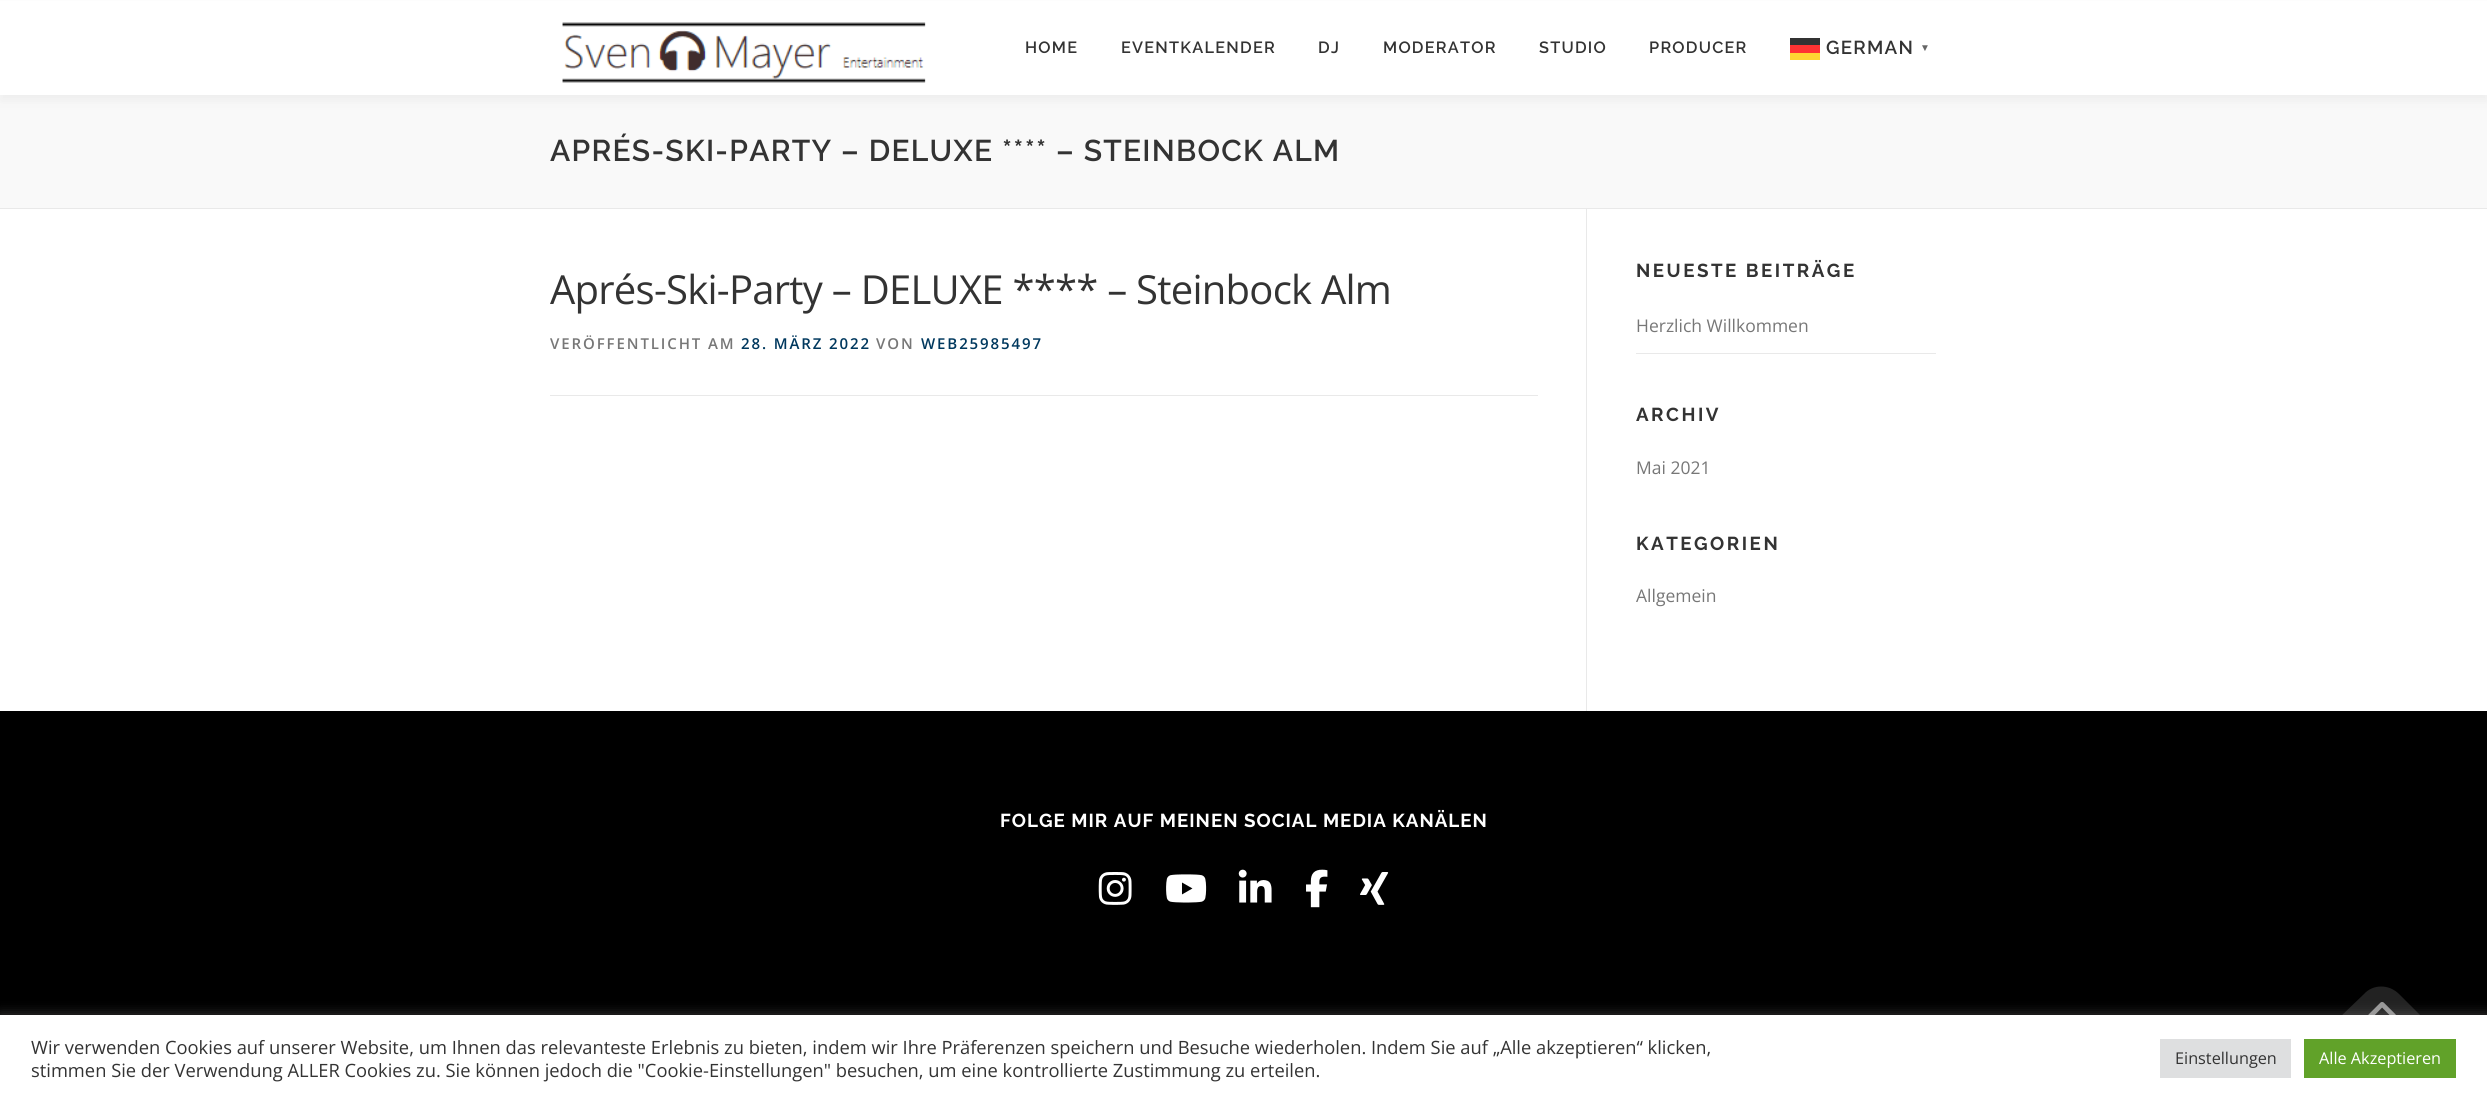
import math
import cairo


def write_spaced(ctx, x, y, s, letter, word):
	ctx.move_to(x, y)
	for ch in s:
		ctx.show_text(ch)
		ctx.rel_move_to(letter + word * (ch == ' '), 0)

def round_path(ctx, x, y, w, h, r):
	ctx.new_sub_path()
	for i, (u, v) in enumerate([(x + w - r, y + h - r), (x + r, y + h - r), (x + r, y + r), (x + w - r, y + r)]):
		ctx.arc(u, v, r, i * math.pi / 2, (i + 1) * math.pi / 2)
	ctx.close_path()

def blur_box(ctx, x, y, w, h, r, blur, alpha):
	ctx.push_group_with_content(cairo.CONTENT_ALPHA)
	ctx.set_operator(cairo.OPERATOR_SOURCE)
	for i in range(15, -16, -2):
		e = blur * i / 6
		if min(w, h) + 2 * e > 0:
			ctx.set_source_rgba(0, 0, 0, alpha * math.erfc((i - 1) / 8.5) / 2)
			round_path(ctx, x - e, y - e, w + 2 * e, h + 2 * e, max(0, min(r + e + blur * .6, min(w, h) / 2 + e)))
			ctx.fill()
	ctx.mask(ctx.pop_group())

def paste(ctx, path, x, y, w, h):
	ctx.save()
	ctx.set_source_surface(cairo.ImageSurface.create_from_png(path), x, y)
	ctx.rectangle(x, y, w, h)
	ctx.fill()
	ctx.restore()

def draw(ctx):
	ctx.set_source_rgb(1, 1, 1)
	ctx.paint()
	ctx.set_source_rgb(0.973, 0.976, 0.976)
	ctx.rectangle(0, 95, 2487, 113)
	ctx.fill()
	ctx.set_source_rgb(0.196, 0.196, 0.196)
	blur_box(ctx, 0, 6, 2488, 95, 0, 6, 0.06)
	ctx.set_source_rgb(1, 1, 1)
	ctx.rectangle(0, 1, 2487, 94)
	ctx.fill()
	paste(ctx, 'media/1.png', 562, 22, 364, 61)
	ctx.select_font_face('Raleway SemiBold')
	ctx.set_font_size(16.25)
	ctx.set_source_rgb(0.2, 0.2, 0.2)
	for x, y, s in [
		(1025, 53, 'HOME'),
		(1121, 53, 'EVENTKALENDER'),
		(1318, 53, 'DJ'),
		(1383, 53, 'MODERATOR'),
		(1539, 53, 'STUDIO'),
		(1649, 53, 'PRODUCER'),
	]:
		write_spaced(ctx, x, y, s, 1.25, 0)
	ctx.rectangle(1790, 38, 30, 7)
	ctx.fill()
	ctx.set_font_size(18.75)
	write_spaced(ctx, 1826, 54, 'GERMAN', 1.25, 0)
	ctx.set_source_rgb(1, 0.2, 0.2)
	ctx.rectangle(1790, 45, 30, 8)
	ctx.fill()
	ctx.select_font_face('Liberation Sans', cairo.FONT_SLANT_NORMAL, cairo.FONT_WEIGHT_BOLD)
	ctx.set_font_size(10)
	ctx.set_source_rgb(0.4, 0.4, 0.4)
	write_spaced(ctx, 1920, 51, '▼', 1.25, 0)
	ctx.set_source_rgb(1, 0.839, 0.2)
	ctx.rectangle(1790, 53, 30, 7)
	ctx.fill()
	ctx.set_source_rgb(0.914, 0.914, 0.914)
	ctx.rectangle(0, 208, 2487, 1)
	ctx.fill()
	ctx.select_font_face('Raleway SemiBold')
	ctx.set_font_size(30)
	ctx.set_source_rgb(0.2, 0.2, 0.2)
	write_spaced(ctx, 550, 161, 'APRÉS-SKI-PARTY – DELUXE **** – STEINBOCK ALM', 1.25, 0)
	ctx.select_font_face('Open Sans')
	ctx.set_font_size(40)
	write_spaced(ctx, 550, 304, 'Aprés-Ski-Party – DELUXE **** – Steinbock Alm', -0.75, 0)
	ctx.set_source_rgb(0.914, 0.914, 0.914)
	ctx.rectangle(550, 395, 988, 1)
	ctx.fill()
	ctx.select_font_face('Open Sans SemiBold')
	ctx.set_font_size(15)
	ctx.set_source_rgb(0.467, 0.467, 0.467)
	write_spaced(ctx, 550, 349, 'VERÖFFENTLICHT AM', 1.9, 0)
	ctx.set_source_rgb(0, 0.22, 0.369)
	write_spaced(ctx, 741, 349, '28. MÄRZ 2022', 1.9, 0)
	ctx.set_source_rgb(0.467, 0.467, 0.467)
	write_spaced(ctx, 876, 349, 'VON', 1.9, 0)
	ctx.set_source_rgb(0, 0.22, 0.369)
	write_spaced(ctx, 921, 349, 'WEB25985497', 1.9, 0)
	ctx.set_source_rgb(0.914, 0.914, 0.914)
	ctx.rectangle(1586, 209, 1, 502)
	ctx.fill()
	ctx.select_font_face('Raleway', cairo.FONT_SLANT_NORMAL, cairo.FONT_WEIGHT_BOLD)
	ctx.set_font_size(18.75)
	ctx.set_source_rgb(0.2, 0.2, 0.2)
	write_spaced(ctx, 1636, 277, 'NEUESTE BEITRÄGE', 2.5, 0)
	ctx.set_source_rgb(0.914, 0.914, 0.914)
	ctx.rectangle(1636, 353, 300, 1)
	ctx.fill()
	ctx.select_font_face('Open Sans')
	ctx.set_font_size(17.5)
	ctx.set_source_rgb(0.467, 0.467, 0.467)
	ctx.move_to(1636, 332)
	ctx.show_text('Herzlich Willkommen')
	ctx.select_font_face('Raleway', cairo.FONT_SLANT_NORMAL, cairo.FONT_WEIGHT_BOLD)
	ctx.set_font_size(18.75)
	ctx.set_source_rgb(0.2, 0.2, 0.2)
	write_spaced(ctx, 1636, 421, 'ARCHIV', 2.5, 0)
	ctx.select_font_face('Open Sans')
	ctx.set_font_size(17.5)
	ctx.set_source_rgb(0.467, 0.467, 0.467)
	ctx.move_to(1636, 474)
	ctx.show_text('Mai 2021')
	ctx.select_font_face('Raleway', cairo.FONT_SLANT_NORMAL, cairo.FONT_WEIGHT_BOLD)
	ctx.set_font_size(18.75)
	ctx.set_source_rgb(0.2, 0.2, 0.2)
	write_spaced(ctx, 1636, 550, 'KATEGORIEN', 2.5, 0)
	ctx.select_font_face('Open Sans')
	ctx.set_font_size(17.5)
	ctx.set_source_rgb(0.467, 0.467, 0.467)
	ctx.move_to(1636, 602)
	ctx.show_text('Allgemein')
	ctx.set_source_rgb(0, 0, 0)
	ctx.rectangle(0, 711, 2487, 304)
	ctx.fill()
	ctx.select_font_face('Raleway', cairo.FONT_SLANT_NORMAL, cairo.FONT_WEIGHT_BOLD)
	ctx.set_font_size(18.75)
	ctx.set_source_rgb(1, 1, 1)
	write_spaced(ctx, 1000, 827, 'FOLGE MIR AUF MEINEN SOCIAL MEDIA KANÄLEN', 1, 0)
	paste(ctx, 'media/2.png', 1098, 872, 34, 33)
	paste(ctx, 'media/3.png', 1166, 874, 41, 29)
	paste(ctx, 'media/4.png', 1238, 869, 34, 34)
	paste(ctx, 'media/5.png', 1306, 869, 22, 39)
	paste(ctx, 'media/6.png', 1360, 872, 29, 33)
	ctx.set_source_rgb(0.133, 0.133, 0.133)
	ctx.new_path()
	ctx.move_to(2337, 1020)
	ctx.line_to(2364, 994)
	ctx.curve_to(2373, 984, 2389, 984, 2399, 994)
	ctx.line_to(2425, 1020)
	ctx.line_to(2381, 1064)
	ctx.close_path()
	ctx.fill()
	paste(ctx, 'media/7.png', 2368, 1002, 28, 13)
	ctx.set_source_rgb(0.675, 0.671, 0.671)
	blur_box(ctx, 0, 1014, 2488, 86, 0, 6, 0.3)
	ctx.set_source_rgb(1, 1, 1)
	ctx.rectangle(0, 1015, 2487, 86)
	ctx.fill()
	ctx.select_font_face('Open Sans')
	ctx.set_font_size(18.33)
	ctx.set_source_rgb(0.2, 0.2, 0.2)
	ctx.move_to(31, 1054)
	ctx.show_text('Wir verwenden Cookies auf unserer Website, um Ihnen das relevanteste Erlebnis zu bieten, indem wir Ihre Präferenzen speichern und Besuche wiederholen. Indem Sie auf „Alle akzeptieren“ klicken,')
	ctx.move_to(31, 1077)
	ctx.show_text('stimmen Sie der Verwendung ALLER Cookies zu. Sie können jedoch die "Cookie-Einstellungen" besuchen, um eine kontrollierte Zustimmung zu erteilen.')
	ctx.set_source_rgb(0.871, 0.875, 0.878)
	ctx.rectangle(2160, 1039, 131, 39)
	ctx.fill()
	ctx.set_font_size(16.25)
	ctx.set_source_rgb(0.2, 0.2, 0.2)
	ctx.move_to(2175, 1064)
	ctx.show_text('Einstellungen')
	ctx.set_source_rgb(0.38, 0.635, 0.161)
	ctx.rectangle(2304, 1039, 152, 39)
	ctx.fill()
	ctx.set_source_rgb(1, 1, 1)
	ctx.move_to(2319, 1064)
	ctx.show_text('Alle Akzeptieren')


surface = cairo.ImageSurface(cairo.FORMAT_RGB24, 2487, 1101)
ctx = cairo.Context(surface)
options = cairo.FontOptions()
options.set_hint_metrics(cairo.HINT_METRICS_OFF)
options.set_hint_style(cairo.HINT_STYLE_NONE)
ctx.set_font_options(options)
ctx.set_miter_limit(4)
draw(ctx)
surface.write_to_png('image.png')
